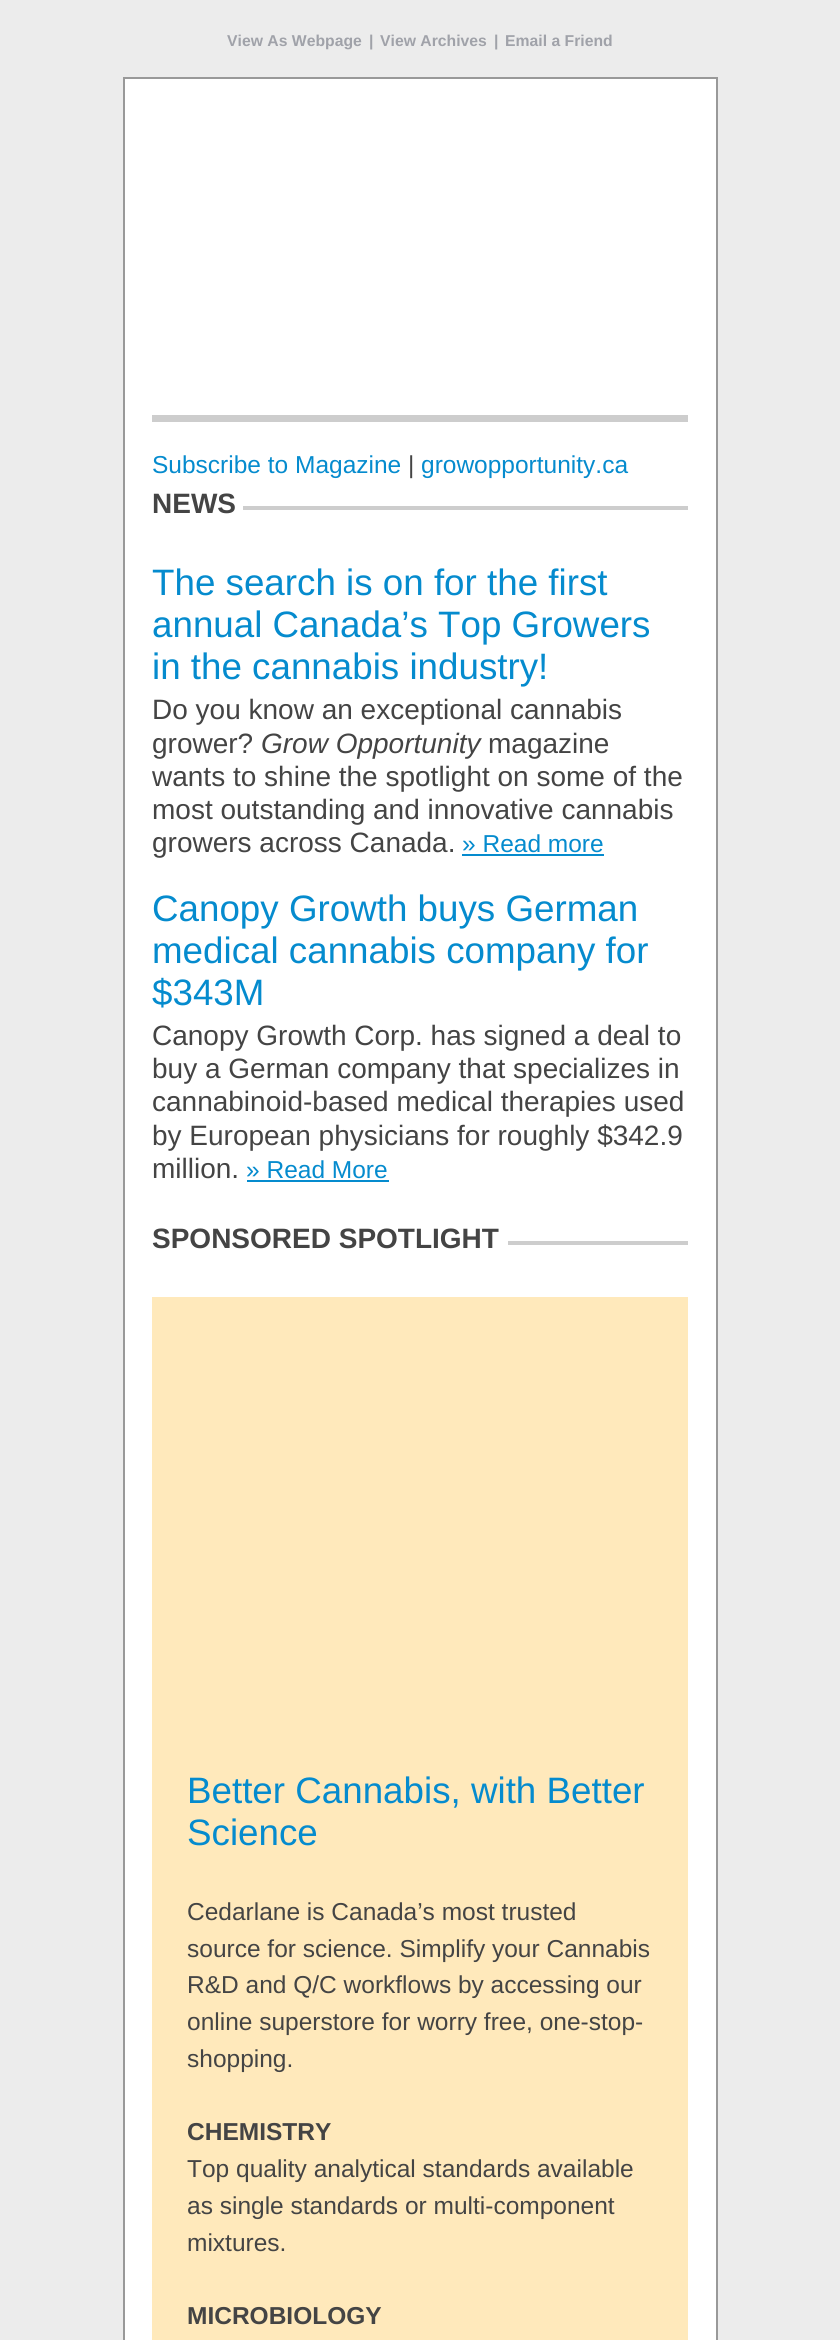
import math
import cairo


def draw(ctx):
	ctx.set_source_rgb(0.925, 0.925, 0.925)
	ctx.paint()
	ctx.select_font_face('Liberation Sans', cairo.FONT_SLANT_NORMAL, cairo.FONT_WEIGHT_BOLD)
	ctx.set_font_size(15.75)
	ctx.set_source_rgb(0.627, 0.635, 0.663)
	for x, y, s in [
		(227, 46, 'View As Webpage'),
		(369, 46, '|'),
		(380, 46, 'View Archives'),
		(494, 46, '|'),
		(505, 46, 'Email a Friend'),
	]:
		ctx.move_to(x, y)
		ctx.show_text(s)
	ctx.set_source_rgb(1, 1, 1)
	ctx.rectangle(124, 78, 593, 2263)
	ctx.fill_preserve()
	ctx.set_source_rgb(0.6, 0.6, 0.6)
	ctx.stroke()
	ctx.set_source_rgb(0.804, 0.804, 0.804)
	ctx.rectangle(152, 415, 536, 7)
	ctx.fill()
	ctx.select_font_face('Liberation Sans')
	ctx.set_font_size(24.5)
	ctx.set_source_rgb(0.02, 0.545, 0.808)
	ctx.move_to(152, 473)
	ctx.show_text('Subscribe to Magazine')
	ctx.set_source_rgb(0.267, 0.267, 0.267)
	ctx.move_to(408, 473)
	ctx.show_text('|')
	ctx.set_source_rgb(0.02, 0.545, 0.808)
	ctx.move_to(421, 473)
	ctx.show_text('growopportunity.ca')
	ctx.select_font_face('Liberation Sans', cairo.FONT_SLANT_NORMAL, cairo.FONT_WEIGHT_BOLD)
	ctx.set_font_size(28)
	ctx.set_source_rgb(0.267, 0.267, 0.267)
	ctx.move_to(152, 513)
	ctx.show_text('NEWS')
	ctx.set_source_rgb(0.804, 0.804, 0.804)
	ctx.rectangle(243, 506, 445, 4)
	ctx.fill()
	ctx.select_font_face('Liberation Sans')
	ctx.set_font_size(36.75)
	ctx.set_source_rgb(0.02, 0.545, 0.808)
	for x, y, s in [
		(152, 595, 'The search is on for the first'),
		(152, 637, 'annual Canada’s Top Growers'),
		(152, 679, 'in the cannabis industry!'),
	]:
		ctx.move_to(x, y)
		ctx.show_text(s)
	ctx.set_font_size(28)
	ctx.set_source_rgb(0.267, 0.267, 0.267)
	ctx.move_to(152, 719)
	ctx.show_text('Do you know an exceptional cannabis')
	ctx.move_to(152, 753)
	ctx.show_text('grower?')
	ctx.select_font_face('Liberation Sans', cairo.FONT_SLANT_ITALIC)
	ctx.move_to(261, 753)
	ctx.show_text('Grow Opportunity')
	ctx.select_font_face('Liberation Sans')
	for x, y, s in [
		(488, 753, 'magazine'),
		(152, 786, 'wants to shine the spotlight on some of the'),
		(152, 819, 'most outstanding and innovative cannabis'),
		(152, 852, 'growers across Canada.'),
	]:
		ctx.move_to(x, y)
		ctx.show_text(s)
	ctx.set_font_size(24.5)
	ctx.set_source_rgb(0.02, 0.545, 0.808)
	ctx.move_to(462, 852)
	ctx.show_text('» Read more')
	ctx.rectangle(462, 854, 142, 2)
	ctx.fill()
	ctx.set_font_size(36.75)
	for x, y, s in [
		(152, 921, 'Canopy Growth buys German'),
		(152, 963, 'medical cannabis company for'),
		(152, 1005, '$343M'),
	]:
		ctx.move_to(x, y)
		ctx.show_text(s)
	ctx.set_font_size(28)
	ctx.set_source_rgb(0.267, 0.267, 0.267)
	for x, y, s in [
		(152, 1045, 'Canopy Growth Corp. has signed a deal to'),
		(152, 1078, 'buy a German company that specializes in'),
		(152, 1111, 'cannabinoid-based medical therapies used'),
		(152, 1145, 'by European physicians for roughly $342.9'),
		(152, 1178, 'million.'),
	]:
		ctx.move_to(x, y)
		ctx.show_text(s)
	ctx.set_font_size(24.5)
	ctx.set_source_rgb(0.02, 0.545, 0.808)
	ctx.move_to(246, 1178)
	ctx.show_text('» Read More')
	ctx.rectangle(247, 1180, 142, 2)
	ctx.fill()
	ctx.select_font_face('Liberation Sans', cairo.FONT_SLANT_NORMAL, cairo.FONT_WEIGHT_BOLD)
	ctx.set_font_size(28)
	ctx.set_source_rgb(0.267, 0.267, 0.267)
	ctx.move_to(152, 1248)
	ctx.show_text('SPONSORED SPOTLIGHT')
	ctx.set_source_rgb(0.804, 0.804, 0.804)
	ctx.rectangle(508, 1241, 180, 4)
	ctx.fill()
	ctx.set_source_rgb(1, 0.914, 0.733)
	ctx.rectangle(152, 1297, 536, 1043)
	ctx.fill()
	ctx.select_font_face('Liberation Sans')
	ctx.set_font_size(36.75)
	ctx.set_source_rgb(0.02, 0.545, 0.808)
	ctx.move_to(187, 1803)
	ctx.show_text('Better Cannabis, with Better')
	ctx.move_to(187, 1845)
	ctx.show_text('Science')
	ctx.set_font_size(24.5)
	ctx.set_source_rgb(0.267, 0.267, 0.267)
	for x, y, s in [
		(187, 1920, 'Cedarlane is Canada’s most trusted'),
		(187, 1957, 'source for science. Simplify your Cannabis'),
		(187, 1993, 'R&D and Q/C workflows by accessing our'),
		(187, 2030, 'online superstore for worry free, one-stop-'),
		(187, 2067, 'shopping.'),
	]:
		ctx.move_to(x, y)
		ctx.show_text(s)
	ctx.select_font_face('Liberation Sans', cairo.FONT_SLANT_NORMAL, cairo.FONT_WEIGHT_BOLD)
	ctx.move_to(187, 2140)
	ctx.show_text('CHEMISTRY')
	ctx.select_font_face('Liberation Sans')
	for x, y, s in [
		(187, 2177, 'Top quality analytical standards available'),
		(187, 2214, 'as single standards or multi-component'),
		(187, 2251, 'mixtures.'),
	]:
		ctx.move_to(x, y)
		ctx.show_text(s)
	ctx.select_font_face('Liberation Sans', cairo.FONT_SLANT_NORMAL, cairo.FONT_WEIGHT_BOLD)
	ctx.move_to(187, 2324)
	ctx.show_text('MICROBIOLOGY')


surface = cairo.ImageSurface(cairo.FORMAT_RGB24, 840, 2340)
ctx = cairo.Context(surface)
options = cairo.FontOptions()
options.set_hint_metrics(cairo.HINT_METRICS_OFF)
options.set_hint_style(cairo.HINT_STYLE_NONE)
ctx.set_font_options(options)
ctx.set_miter_limit(4)
draw(ctx)
surface.write_to_png('image.png')
